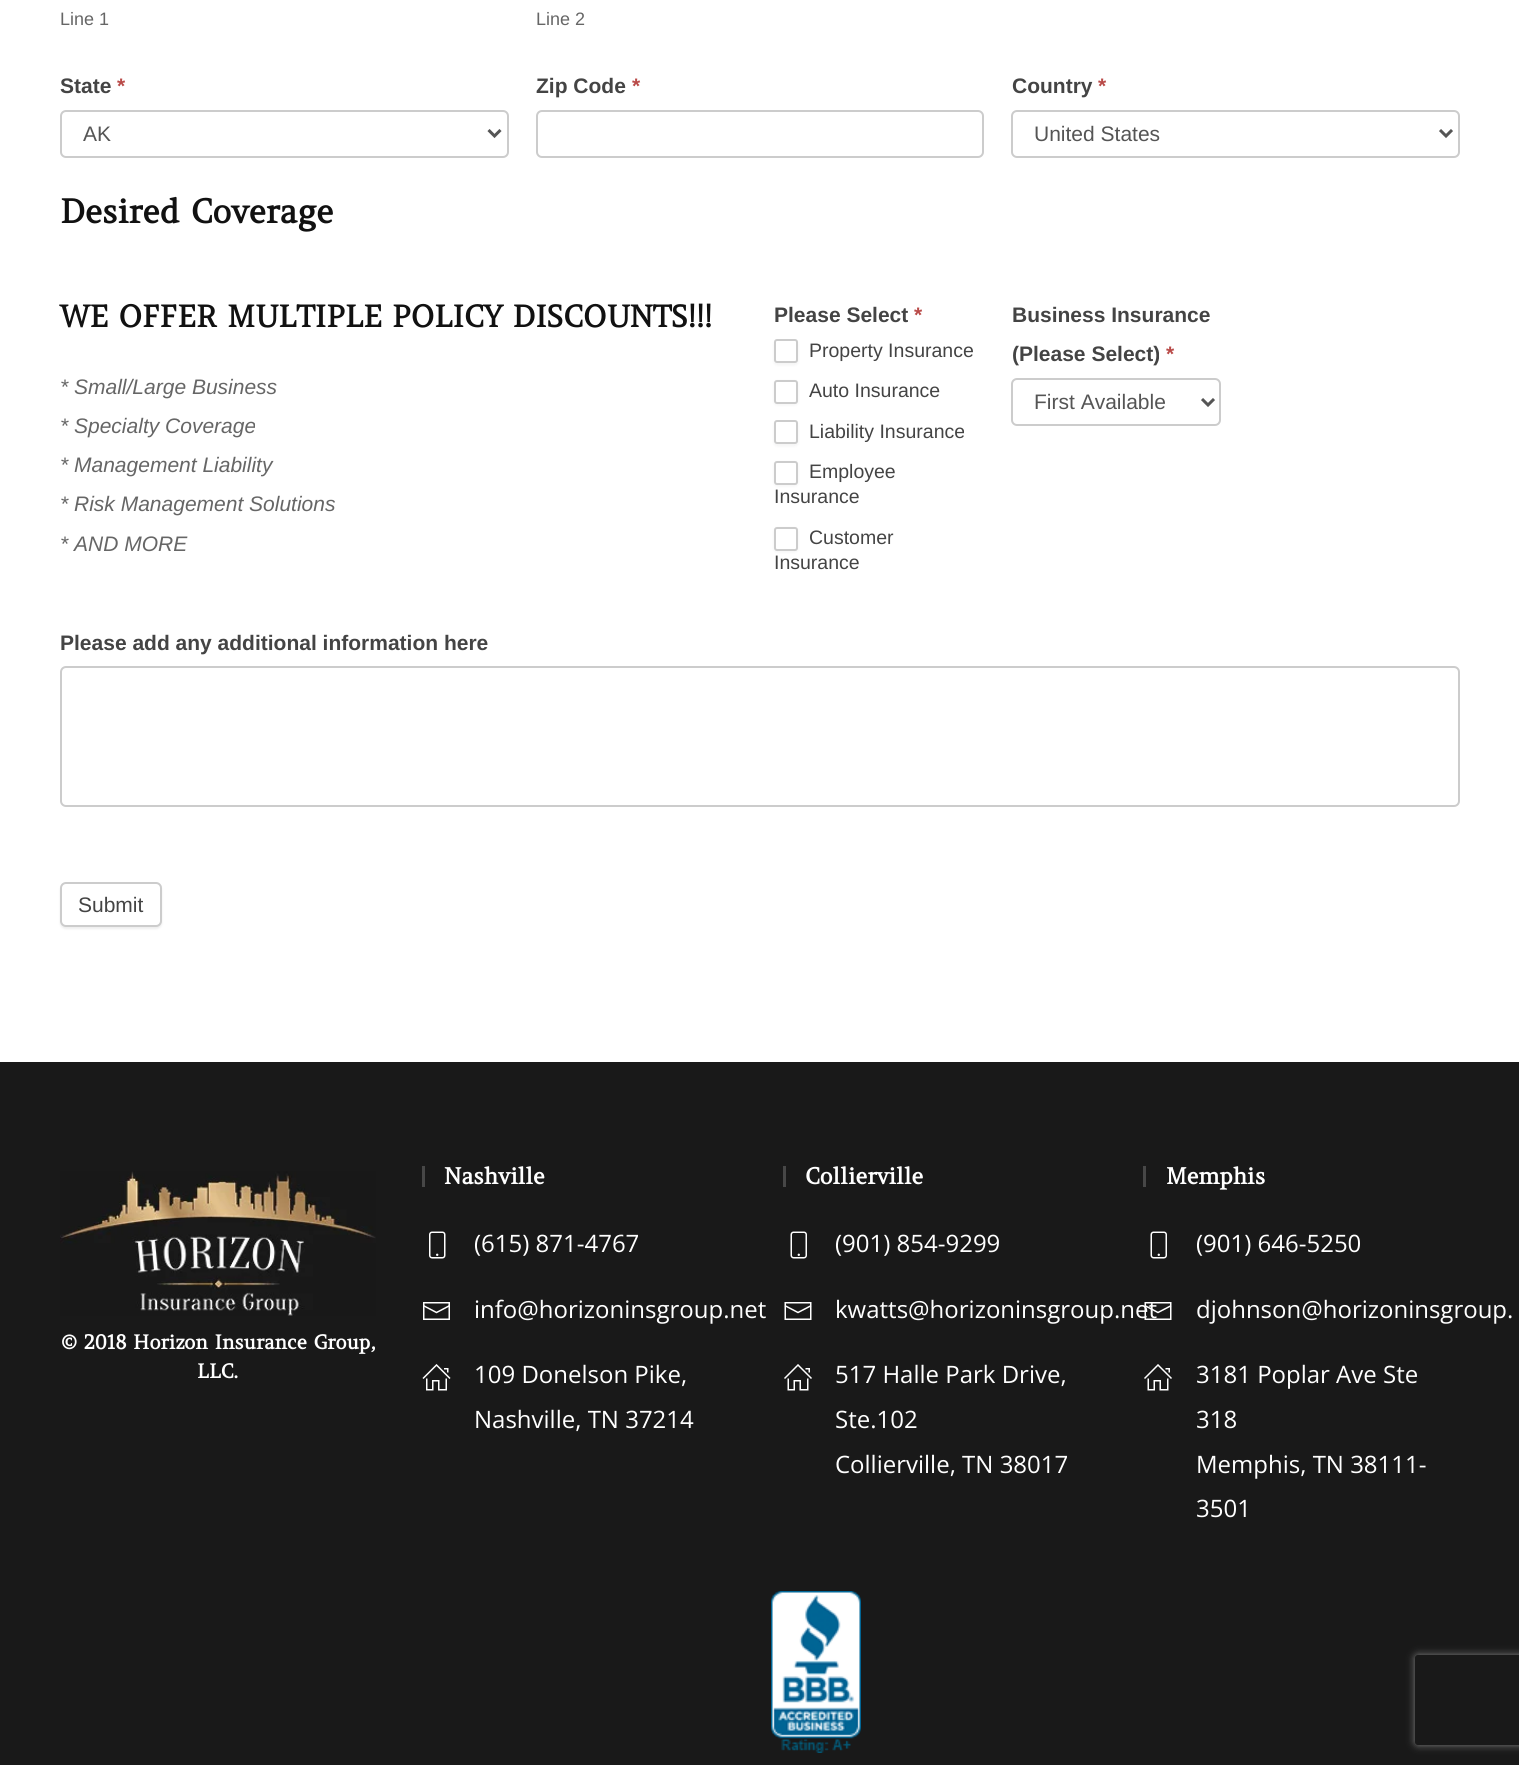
import math
import cairo


def round_path(ctx, x, y, w, h, r):
	ctx.new_sub_path()
	for i, (u, v) in enumerate([(x + w - r, y + h - r), (x + r, y + h - r), (x + r, y + r), (x + w - r, y + r)]):
		ctx.arc(u, v, r, i * math.pi / 2, (i + 1) * math.pi / 2)
	ctx.close_path()

def blur_box(ctx, x, y, w, h, r, blur, alpha):
	ctx.push_group_with_content(cairo.CONTENT_ALPHA)
	ctx.set_operator(cairo.OPERATOR_SOURCE)
	for i in range(15, -16, -2):
		e = blur * i / 6
		if min(w, h) + 2 * e > 0:
			ctx.set_source_rgba(0, 0, 0, alpha * math.erfc((i - 1) / 8.5) / 2)
			round_path(ctx, x - e, y - e, w + 2 * e, h + 2 * e, max(0, min(r + e + blur * .6, min(w, h) / 2 + e)))
			ctx.fill()
	ctx.mask(ctx.pop_group())

def paste(ctx, path, x, y, w, h):
	ctx.save()
	ctx.set_source_surface(cairo.ImageSurface.create_from_png(path), x, y)
	ctx.rectangle(x, y, w, h)
	ctx.fill()
	ctx.restore()

def draw(ctx):
	ctx.set_source_rgb(1, 1, 1)
	ctx.paint()
	ctx.select_font_face('Liberation Sans')
	ctx.set_font_size(18)
	ctx.set_source_rgb(0.4, 0.4, 0.4)
	ctx.move_to(60, 25)
	ctx.show_text('Line 1')
	ctx.move_to(536, 25)
	ctx.show_text('Line 2')
	ctx.select_font_face('Liberation Sans', cairo.FONT_SLANT_NORMAL, cairo.FONT_WEIGHT_BOLD)
	ctx.set_font_size(21)
	ctx.set_source_rgb(0.267, 0.267, 0.267)
	ctx.move_to(60, 93)
	ctx.show_text('State')
	ctx.set_source_rgb(0.725, 0.29, 0.282)
	ctx.move_to(117, 93)
	ctx.show_text('*')
	round_path(ctx, 61, 111, 447, 46, 5)
	ctx.set_source_rgb(0.8, 0.8, 0.8)
	ctx.stroke()
	ctx.new_path()
	ctx.move_to(488.5, 130)
	ctx.line_to(494.5, 136)
	ctx.line_to(500.5, 130)
	ctx.set_source_rgb(0.333, 0.333, 0.333)
	ctx.set_line_width(3)
	ctx.stroke()
	ctx.select_font_face('Liberation Sans')
	ctx.move_to(83, 141)
	ctx.show_text('AK')
	ctx.select_font_face('Liberation Sans', cairo.FONT_SLANT_NORMAL, cairo.FONT_WEIGHT_BOLD)
	ctx.set_source_rgb(0.267, 0.267, 0.267)
	ctx.move_to(536, 93)
	ctx.show_text('Zip Code')
	ctx.set_source_rgb(0.725, 0.29, 0.282)
	ctx.move_to(632, 93)
	ctx.show_text('*')
	round_path(ctx, 537, 111, 446, 46, 5)
	ctx.set_source_rgb(0.8, 0.8, 0.8)
	ctx.set_line_width(2)
	ctx.stroke()
	ctx.set_source_rgb(0.267, 0.267, 0.267)
	ctx.move_to(1012, 93)
	ctx.show_text('Country')
	ctx.set_source_rgb(0.725, 0.29, 0.282)
	ctx.move_to(1098, 93)
	ctx.show_text('*')
	round_path(ctx, 1012, 111, 447, 46, 5)
	ctx.set_source_rgb(0.8, 0.8, 0.8)
	ctx.stroke()
	ctx.new_path()
	ctx.move_to(1440, 130)
	ctx.line_to(1446, 136)
	ctx.line_to(1452, 130)
	ctx.set_source_rgb(0.333, 0.333, 0.333)
	ctx.set_line_width(3)
	ctx.stroke()
	ctx.select_font_face('Liberation Sans')
	ctx.move_to(1034, 141)
	ctx.show_text('United States')
	ctx.select_font_face('Amethysta', cairo.FONT_SLANT_NORMAL, cairo.FONT_WEIGHT_BOLD)
	ctx.set_font_size(33)
	ctx.set_source_rgb(0.067, 0.067, 0.067)
	ctx.move_to(60, 223)
	ctx.show_text('Desired Coverage')
	ctx.set_font_size(30)
	ctx.move_to(60, 327)
	ctx.show_text('WE OFFER MULTIPLE POLICY DISCOUNTS!!!')
	ctx.select_font_face('Liberation Sans', cairo.FONT_SLANT_ITALIC)
	ctx.set_font_size(21)
	ctx.set_source_rgb(0.4, 0.4, 0.4)
	for x, y, s in [
		(60, 394, '* Small/Large Business'),
		(60, 433, '* Specialty Coverage'),
		(60, 472, '* Management Liability'),
		(60, 511, '* Risk Management Solutions'),
		(60, 551, '* AND MORE'),
	]:
		ctx.move_to(x, y)
		ctx.show_text(s)
	ctx.select_font_face('Liberation Sans', cairo.FONT_SLANT_NORMAL, cairo.FONT_WEIGHT_BOLD)
	ctx.set_source_rgb(0.267, 0.267, 0.267)
	ctx.move_to(774, 322)
	ctx.show_text('Please Select')
	ctx.set_source_rgb(0.725, 0.29, 0.282)
	ctx.move_to(914, 322)
	ctx.show_text('*')
	ctx.set_source_rgb(0.071, 0.071, 0.09)
	blur_box(ctx, 774, 341, 24, 24, 3, 1.5, 0.05)
	ctx.set_source_rgb(1, 1, 1)
	round_path(ctx, 775, 340, 22, 22, 2)
	ctx.fill_preserve()
	ctx.set_source_rgb(0.8, 0.8, 0.8)
	ctx.set_line_width(2)
	ctx.stroke()
	ctx.select_font_face('Liberation Sans')
	ctx.set_font_size(19.5)
	ctx.set_source_rgb(0.267, 0.267, 0.267)
	ctx.move_to(809, 357)
	ctx.show_text('Property Insurance')
	ctx.set_source_rgb(0.071, 0.071, 0.09)
	blur_box(ctx, 774, 381, 24, 24, 3, 1.5, 0.05)
	ctx.set_source_rgb(1, 1, 1)
	round_path(ctx, 775, 381, 22, 22, 2)
	ctx.fill_preserve()
	ctx.set_source_rgb(0.8, 0.8, 0.8)
	ctx.stroke()
	ctx.set_source_rgb(0.267, 0.267, 0.267)
	ctx.move_to(809, 397)
	ctx.show_text('Auto Insurance')
	ctx.set_source_rgb(0.071, 0.071, 0.09)
	blur_box(ctx, 774, 422, 24, 24, 3, 1.5, 0.05)
	ctx.set_source_rgb(1, 1, 1)
	round_path(ctx, 775, 421, 22, 22, 2)
	ctx.fill_preserve()
	ctx.set_source_rgb(0.8, 0.8, 0.8)
	ctx.stroke()
	ctx.set_source_rgb(0.267, 0.267, 0.267)
	ctx.move_to(809, 438)
	ctx.show_text('Liability Insurance')
	ctx.set_source_rgb(0.071, 0.071, 0.09)
	blur_box(ctx, 774, 462, 24, 24, 3, 1.5, 0.05)
	ctx.set_source_rgb(1, 1, 1)
	round_path(ctx, 775, 462, 22, 22, 2)
	ctx.fill_preserve()
	ctx.set_source_rgb(0.8, 0.8, 0.8)
	ctx.stroke()
	ctx.set_source_rgb(0.267, 0.267, 0.267)
	ctx.move_to(809, 478)
	ctx.show_text('Employee')
	ctx.move_to(774, 503)
	ctx.show_text('Insurance')
	ctx.set_source_rgb(0.071, 0.071, 0.09)
	blur_box(ctx, 774, 528, 24, 24, 3, 1.5, 0.05)
	ctx.set_source_rgb(1, 1, 1)
	round_path(ctx, 775, 528, 22, 22, 2)
	ctx.fill_preserve()
	ctx.set_source_rgb(0.8, 0.8, 0.8)
	ctx.stroke()
	ctx.set_source_rgb(0.267, 0.267, 0.267)
	ctx.move_to(809, 544)
	ctx.show_text('Customer')
	ctx.move_to(774, 569)
	ctx.show_text('Insurance')
	ctx.select_font_face('Liberation Sans', cairo.FONT_SLANT_NORMAL, cairo.FONT_WEIGHT_BOLD)
	ctx.set_font_size(21)
	ctx.move_to(1012, 322)
	ctx.show_text('Business Insurance')
	ctx.move_to(1012, 361)
	ctx.show_text('(Please Select)')
	ctx.set_source_rgb(0.725, 0.29, 0.282)
	ctx.move_to(1166, 361)
	ctx.show_text('*')
	round_path(ctx, 1012, 379, 208, 46, 5)
	ctx.set_source_rgb(0.8, 0.8, 0.8)
	ctx.stroke()
	ctx.new_path()
	ctx.move_to(1202, 399)
	ctx.line_to(1208, 405)
	ctx.line_to(1214, 399)
	ctx.set_source_rgb(0.333, 0.333, 0.333)
	ctx.set_line_width(3)
	ctx.stroke()
	ctx.select_font_face('Liberation Sans')
	ctx.move_to(1034, 409)
	ctx.show_text('First Available')
	ctx.select_font_face('Liberation Sans', cairo.FONT_SLANT_NORMAL, cairo.FONT_WEIGHT_BOLD)
	ctx.set_source_rgb(0.267, 0.267, 0.267)
	ctx.move_to(60, 650)
	ctx.show_text('Please add any additional information here')
	round_path(ctx, 61, 667, 1398, 139, 5)
	ctx.set_source_rgb(0.8, 0.8, 0.8)
	ctx.set_line_width(2)
	ctx.stroke()
	ctx.set_source_rgb(0.933, 0.933, 0.933)
	blur_box(ctx, 60, 884, 102, 45, 6, 1, 1)
	ctx.set_source_rgb(1, 1, 1)
	round_path(ctx, 61, 883, 100, 43, 5)
	ctx.fill_preserve()
	ctx.set_source_rgb(0.8, 0.8, 0.8)
	ctx.stroke()
	ctx.select_font_face('Liberation Sans')
	ctx.set_source_rgb(0.267, 0.267, 0.267)
	ctx.move_to(78, 912)
	ctx.show_text('Submit')
	ctx.set_source_rgb(0.098, 0.098, 0.098)
	ctx.rectangle(0, 1062, 1519, 703)
	ctx.fill()
	ctx.save()
	ctx.set_fill_rule(cairo.FILL_RULE_EVEN_ODD)
	ctx.new_path()
	ctx.move_to(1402, 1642)
	ctx.line_to(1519, 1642)
	ctx.line_to(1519, 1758)
	ctx.line_to(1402, 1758)
	ctx.close_path()
	ctx.move_to(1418, 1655)
	ctx.line_to(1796, 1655)
	ctx.curve_to(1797.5, 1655, 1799, 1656.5, 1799, 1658)
	ctx.line_to(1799, 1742)
	ctx.curve_to(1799, 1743.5, 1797.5, 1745, 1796, 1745)
	ctx.line_to(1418, 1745)
	ctx.curve_to(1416.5, 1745, 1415, 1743.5, 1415, 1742)
	ctx.line_to(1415, 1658)
	ctx.curve_to(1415, 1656.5, 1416.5, 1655, 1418, 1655)
	ctx.close_path()
	ctx.clip()
	ctx.set_source_rgb(0.502, 0.502, 0.502)
	blur_box(ctx, 1415, 1655, 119, 90, 3, 4, 1)
	ctx.restore()
	paste(ctx, 'media/1.png', 60, 1171, 316, 145)
	ctx.select_font_face('Amethysta', cairo.FONT_SLANT_NORMAL, cairo.FONT_WEIGHT_BOLD)
	ctx.set_font_size(19.5)
	ctx.set_source_rgb(1, 1, 1)
	ctx.move_to(61, 1349)
	ctx.show_text('© 2018 Horizon Insurance Group,')
	ctx.move_to(197, 1378)
	ctx.show_text('LLC.')
	ctx.set_source_rgb(0.278, 0.278, 0.278)
	ctx.rectangle(422, 1166, 3, 21)
	ctx.fill()
	ctx.set_font_size(22.5)
	ctx.set_source_rgb(1, 1, 1)
	ctx.move_to(444, 1184)
	ctx.show_text('Nashville')
	paste(ctx, 'media/2.png', 429, 1231, 17, 28)
	ctx.select_font_face('Open Sans')
	ctx.set_font_size(24)
	ctx.move_to(474, 1252)
	ctx.show_text('(615) 871-4767')
	paste(ctx, 'media/3.png', 423, 1302, 27, 18)
	ctx.move_to(474, 1318)
	ctx.show_text('info@horizoninsgroup.net')
	paste(ctx, 'media/4.png', 422, 1364, 29, 27)
	ctx.move_to(474, 1383)
	ctx.show_text('109 Donelson Pike,')
	ctx.move_to(474, 1428)
	ctx.show_text('Nashville, TN 37214')
	ctx.set_source_rgb(0.278, 0.278, 0.278)
	ctx.rectangle(783, 1166, 3, 21)
	ctx.fill()
	ctx.select_font_face('Amethysta', cairo.FONT_SLANT_NORMAL, cairo.FONT_WEIGHT_BOLD)
	ctx.set_font_size(22.5)
	ctx.set_source_rgb(1, 1, 1)
	ctx.move_to(805, 1184)
	ctx.show_text('Collierville')
	paste(ctx, 'media/5.png', 790, 1231, 17, 28)
	ctx.select_font_face('Open Sans')
	ctx.set_font_size(24)
	ctx.move_to(835, 1252)
	ctx.show_text('(901) 854-9299')
	paste(ctx, 'media/6.png', 784, 1302, 28, 18)
	ctx.move_to(835, 1318)
	ctx.show_text('kwatts@horizoninsgroup.net')
	paste(ctx, 'media/7.png', 784, 1364, 28, 27)
	for x, y, s in [
		(835, 1383, '517 Halle Park Drive,'),
		(835, 1428, 'Ste.102'),
		(835, 1473, 'Collierville, TN 38017'),
	]:
		ctx.move_to(x, y)
		ctx.show_text(s)
	ctx.set_source_rgb(0.278, 0.278, 0.278)
	ctx.rectangle(1143, 1166, 3, 21)
	ctx.fill()
	ctx.select_font_face('Amethysta', cairo.FONT_SLANT_NORMAL, cairo.FONT_WEIGHT_BOLD)
	ctx.set_font_size(22.5)
	ctx.set_source_rgb(1, 1, 1)
	ctx.move_to(1166, 1184)
	ctx.show_text('Memphis')
	paste(ctx, 'media/5.png', 1150, 1231, 17, 28)
	ctx.select_font_face('Open Sans')
	ctx.set_font_size(24)
	ctx.move_to(1196, 1252)
	ctx.show_text('(901) 646-5250')
	paste(ctx, 'media/8.png', 1144, 1302, 28, 18)
	ctx.move_to(1196, 1318)
	ctx.show_text('djohnson@horizoninsgroup.')
	paste(ctx, 'media/7.png', 1144, 1364, 28, 27)
	for x, y, s in [
		(1196, 1383, '3181 Poplar Ave Ste'),
		(1196, 1428, '318'),
		(1196, 1473, 'Memphis, TN 38111-'),
		(1196, 1517, '3501'),
	]:
		ctx.move_to(x, y)
		ctx.show_text(s)
	paste(ctx, 'media/9.png', 771, 1591, 90, 162)


surface = cairo.ImageSurface(cairo.FORMAT_RGB24, 1519, 1765)
ctx = cairo.Context(surface)
options = cairo.FontOptions()
options.set_hint_metrics(cairo.HINT_METRICS_OFF)
options.set_hint_style(cairo.HINT_STYLE_NONE)
ctx.set_font_options(options)
ctx.set_miter_limit(4)
draw(ctx)
surface.write_to_png('image.png')
